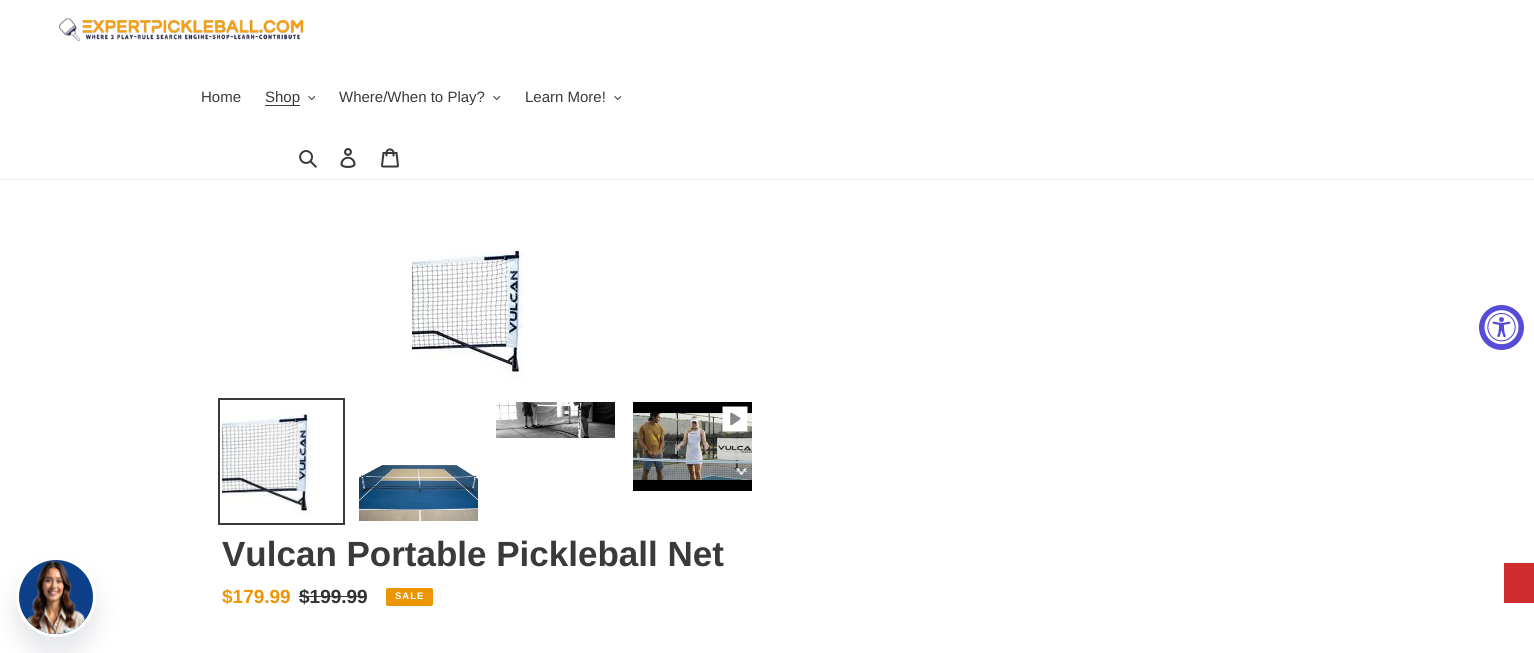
import math
import cairo


def write_spaced(ctx, x, y, s, letter, word):
	ctx.move_to(x, y)
	for ch in s:
		ctx.show_text(ch)
		ctx.rel_move_to(letter + word * (ch == ' '), 0)

def round_path(ctx, x, y, w, h, r):
	ctx.new_sub_path()
	for i, (u, v) in enumerate([(x + w - r, y + h - r), (x + r, y + h - r), (x + r, y + r), (x + w - r, y + r)]):
		ctx.arc(u, v, r, i * math.pi / 2, (i + 1) * math.pi / 2)
	ctx.close_path()

def blur_box(ctx, x, y, w, h, r, blur, alpha):
	ctx.push_group_with_content(cairo.CONTENT_ALPHA)
	ctx.set_operator(cairo.OPERATOR_SOURCE)
	for i in range(15, -16, -2):
		e = blur * i / 6
		if min(w, h) + 2 * e > 0:
			ctx.set_source_rgba(0, 0, 0, alpha * math.erfc((i - 1) / 8.5) / 2)
			round_path(ctx, x - e, y - e, w + 2 * e, h + 2 * e, max(0, min(r + e + blur * .6, min(w, h) / 2 + e)))
			ctx.fill()
	ctx.mask(ctx.pop_group())

def paste(ctx, path, x, y, w, h):
	ctx.save()
	ctx.set_source_surface(cairo.ImageSurface.create_from_png(path), x, y)
	ctx.rectangle(x, y, w, h)
	ctx.fill()
	ctx.restore()

def draw(ctx):
	ctx.set_source_rgb(1, 1, 1)
	ctx.paint()
	ctx.set_source_rgb(0.922, 0.922, 0.922)
	ctx.rectangle(0, 179, 1534, 1)
	ctx.fill()
	paste(ctx, 'media/1.png', 59, 18, 245, 24)
	ctx.select_font_face('Liberation Sans')
	ctx.set_font_size(15)
	ctx.set_source_rgb(0.227, 0.227, 0.227)
	ctx.move_to(201, 102)
	ctx.show_text('Home')
	ctx.rectangle(265, 105, 35, 1)
	ctx.fill()
	ctx.move_to(265, 102)
	ctx.show_text('Shop')
	paste(ctx, 'media/2.png', 308, 96, 7, 4)
	ctx.move_to(339, 102)
	ctx.show_text('Where/When to Play?')
	paste(ctx, 'media/3.png', 493, 96, 8, 4)
	ctx.move_to(525, 102)
	ctx.show_text('Learn More!')
	paste(ctx, 'media/2.png', 614, 96, 7, 4)
	paste(ctx, 'media/4.png', 299, 150, 18, 18)
	paste(ctx, 'media/5.png', 340, 148, 16, 20)
	paste(ctx, 'media/6.png', 381, 148, 18, 20)
	ctx.set_source_rgb(0.341, 0.298, 0.835)
	ctx.arc(1501.5, 327.5, 22.5, 0, 2 * math.pi)
	ctx.fill()
	paste(ctx, 'media/7.png', 1484, 310, 35, 35)
	ctx.set_source_rgb(0.329, 0.373, 0.435)
	blur_box(ctx, 16, 573, 80, 80, 40, 12, 0.16)
	ctx.set_source_rgb(0.055, 0.251, 0.541)
	ctx.arc(56, 597, 38.5, 0, 2 * math.pi)
	ctx.fill_preserve()
	ctx.set_source_rgb(1, 1, 1)
	ctx.set_line_width(3)
	ctx.stroke()
	paste(ctx, 'media/8.png', 27, 560, 58, 74)
	paste(ctx, 'media/9.png', 412, 249, 112, 130)
	ctx.rectangle(219, 399, 125, 125)
	ctx.set_source_rgb(0.227, 0.227, 0.227)
	ctx.set_line_width(2)
	ctx.stroke()
	paste(ctx, 'media/10.png', 222, 413, 89, 103)
	paste(ctx, 'media/11.png', 359, 462, 119, 59)
	paste(ctx, 'media/12.png', 496, 402, 119, 36)
	paste(ctx, 'media/13.png', 633, 402, 119, 89)
	paste(ctx, 'media/14.png', 722, 406, 26, 26)
	ctx.select_font_face('Liberation Sans', cairo.FONT_SLANT_NORMAL, cairo.FONT_WEIGHT_BOLD)
	ctx.set_font_size(35)
	ctx.move_to(222, 566)
	ctx.show_text('Vulcan Portable Pickleball Net')
	ctx.set_font_size(19)
	ctx.set_source_rgb(0.922, 0.588, 0.027)
	ctx.move_to(222, 603)
	ctx.show_text('$179.99')
	ctx.set_source_rgb(0.2, 0.196, 0.196)
	ctx.move_to(299, 603)
	ctx.show_text('$199.99')
	ctx.rectangle(299, 596, 68, 1)
	ctx.fill()
	ctx.set_source_rgb(0.922, 0.588, 0.027)
	round_path(ctx, 386.5, 588.5, 46, 17, 1.5)
	ctx.fill_preserve()
	ctx.set_line_width(1)
	ctx.stroke()
	ctx.set_font_size(9.5)
	ctx.set_source_rgb(1, 1, 1)
	write_spaced(ctx, 395, 599, 'SALE', 1, 0)
	ctx.set_source_rgb(0.812, 0.176, 0.176)
	ctx.rectangle(1504, 563, 30, 40)
	ctx.fill()


surface = cairo.ImageSurface(cairo.FORMAT_RGB24, 1534, 653)
ctx = cairo.Context(surface)
options = cairo.FontOptions()
options.set_hint_metrics(cairo.HINT_METRICS_OFF)
options.set_hint_style(cairo.HINT_STYLE_NONE)
ctx.set_font_options(options)
ctx.set_miter_limit(4)
draw(ctx)
surface.write_to_png('image.png')
